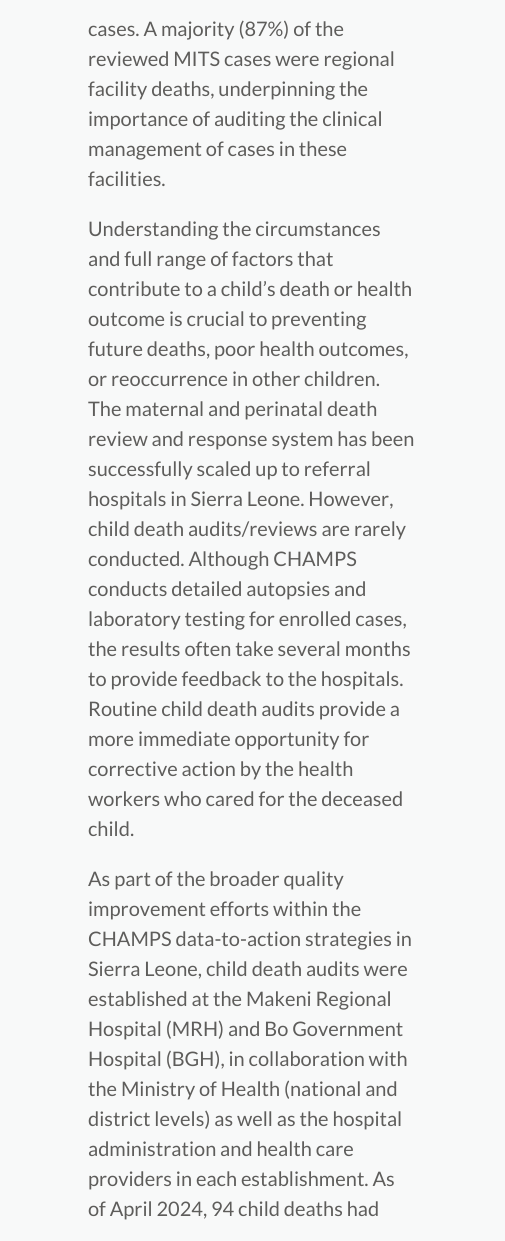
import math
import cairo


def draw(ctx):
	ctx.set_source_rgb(0.969, 0.973, 0.976)
	ctx.paint()
	ctx.select_font_face('Lato')
	ctx.set_font_size(20)
	ctx.set_source_rgb(0.369, 0.365, 0.357)
	for x, y, s in [
		(88, 36, 'cases. A majority (87%) of the'),
		(88, 66, 'reviewed MITS cases were regional'),
		(88, 96, 'facility deaths, underpinning the'),
		(88, 126, 'importance of auditing the clinical'),
		(88, 156, 'management of cases in these'),
		(88, 186, 'facilities.'),
		(88, 236, 'Understanding the circumstances'),
		(88, 266, 'and full range of factors that'),
		(88, 296, 'contribute to a child’s death or health'),
		(88, 326, 'outcome is crucial to preventing'),
		(88, 356, 'future deaths, poor health outcomes,'),
		(88, 386, 'or reoccurrence in other children.'),
		(88, 416, 'The maternal and perinatal death'),
		(88, 446, 'review and response system has been'),
		(88, 476, 'successfully scaled up to referral'),
		(88, 506, 'hospitals in Sierra Leone. However,'),
		(88, 536, 'child death audits/reviews are rarely'),
		(88, 566, 'conducted. Although CHAMPS'),
		(88, 596, 'conducts detailed autopsies and'),
		(88, 626, 'laboratory testing for enrolled cases,'),
		(88, 656, 'the results often take several months'),
		(88, 686, 'to provide feedback to the hospitals.'),
		(88, 716, 'Routine child death audits provide a'),
		(88, 746, 'more immediate opportunity for'),
		(88, 776, 'corrective action by the health'),
		(88, 806, 'workers who cared for the deceased'),
		(88, 836, 'child.'),
		(88, 886, 'As part of the broader quality'),
		(88, 916, 'improvement efforts within the'),
		(88, 946, 'CHAMPS data-to-action strategies in'),
		(88, 976, 'Sierra Leone, child death audits were'),
		(88, 1006, 'established at the Makeni Regional'),
		(88, 1036, 'Hospital (MRH) and Bo Government'),
		(88, 1066, 'Hospital (BGH), in collaboration with'),
		(88, 1096, 'the Ministry of Health (national and'),
		(88, 1126, 'district levels) as well as the hospital'),
		(88, 1156, 'administration and health care'),
		(88, 1186, 'providers in each establishment. As'),
		(88, 1216, 'of April 2024, 94 child deaths had'),
	]:
		ctx.move_to(x, y)
		ctx.show_text(s)


surface = cairo.ImageSurface(cairo.FORMAT_RGB24, 505, 1241)
ctx = cairo.Context(surface)
options = cairo.FontOptions()
options.set_hint_metrics(cairo.HINT_METRICS_OFF)
options.set_hint_style(cairo.HINT_STYLE_NONE)
ctx.set_font_options(options)
ctx.set_miter_limit(4)
draw(ctx)
surface.write_to_png('image.png')
